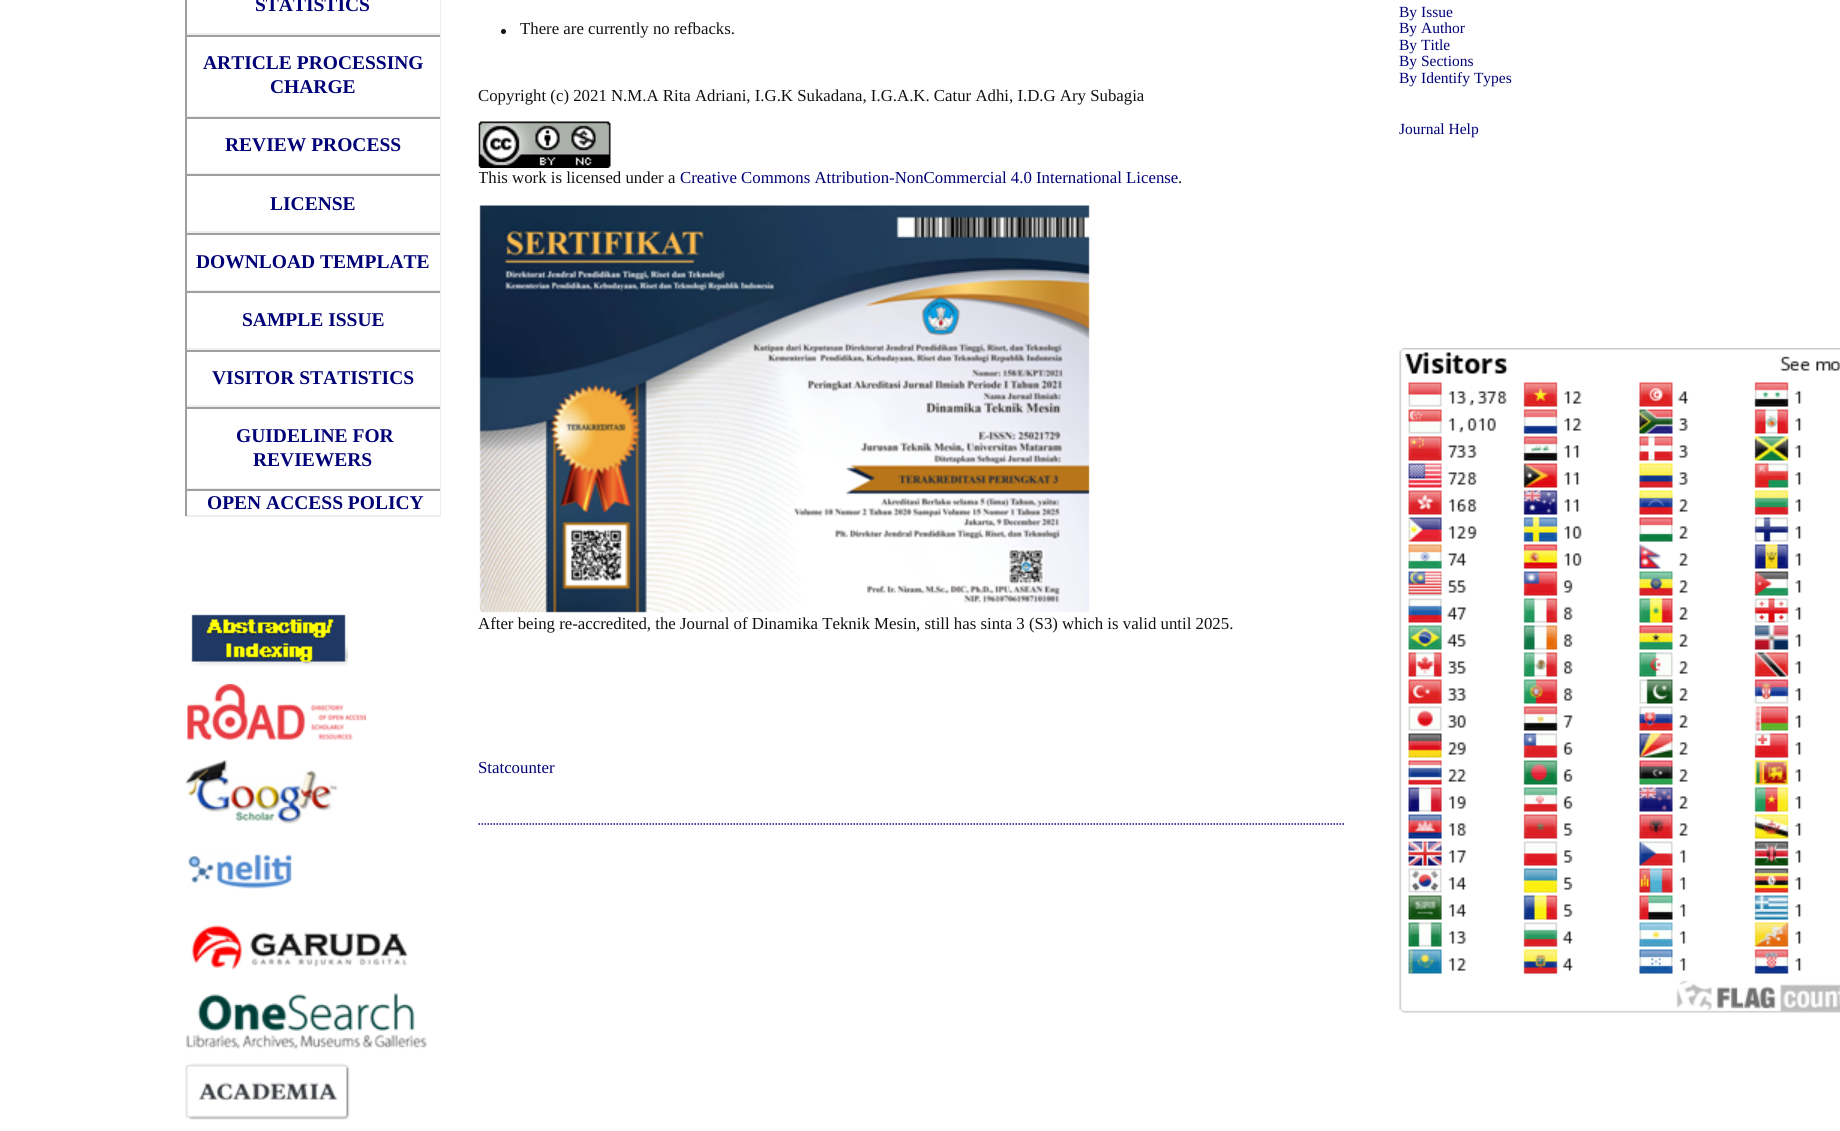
import math
import cairo


def paste(ctx, path, x, y, w, h):
	ctx.save()
	ctx.set_source_surface(cairo.ImageSurface.create_from_png(path), x, y)
	ctx.rectangle(x, y, w, h)
	ctx.fill()
	ctx.restore()

def draw(ctx):
	ctx.set_source_rgb(1, 1, 1)
	ctx.paint()
	ctx.set_source_rgb(0.933, 0.933, 0.933)
	ctx.rectangle(440, 0, 1, 35)
	ctx.rectangle(185, 33, 256, 2)
	ctx.fill()
	ctx.set_source_rgb(0.624, 0.624, 0.624)
	ctx.rectangle(185, 0, 2, 35)
	ctx.fill()
	ctx.select_font_face('Liberation Serif', cairo.FONT_SLANT_NORMAL, cairo.FONT_WEIGHT_BOLD)
	ctx.set_font_size(19.5)
	ctx.set_source_rgb(0, 0, 0.467)
	ctx.move_to(255, 11)
	ctx.show_text('STATISTICS')
	ctx.set_source_rgb(0.624, 0.624, 0.624)
	ctx.rectangle(185, 35, 256, 2)
	ctx.fill()
	ctx.set_source_rgb(0.933, 0.933, 0.933)
	ctx.rectangle(440, 35, 1, 82)
	ctx.rectangle(185, 116, 256, 1)
	ctx.fill()
	ctx.set_source_rgb(0.624, 0.624, 0.624)
	ctx.rectangle(185, 35, 2, 82)
	ctx.fill()
	ctx.set_source_rgb(0, 0, 0.467)
	ctx.move_to(203, 69)
	ctx.show_text('ARTICLE PROCESSING')
	ctx.move_to(270, 93)
	ctx.show_text('CHARGE')
	ctx.set_source_rgb(0.624, 0.624, 0.624)
	ctx.rectangle(185, 117, 256, 2)
	ctx.fill()
	ctx.set_source_rgb(0.933, 0.933, 0.933)
	ctx.rectangle(440, 117, 1, 57)
	ctx.rectangle(185, 173, 256, 1)
	ctx.fill()
	ctx.set_source_rgb(0.624, 0.624, 0.624)
	ctx.rectangle(185, 117, 2, 57)
	ctx.fill()
	ctx.set_source_rgb(0, 0, 0.467)
	ctx.move_to(225, 151)
	ctx.show_text('REVIEW PROCESS')
	ctx.set_source_rgb(0.624, 0.624, 0.624)
	ctx.rectangle(185, 174, 256, 2)
	ctx.fill()
	ctx.set_source_rgb(0.933, 0.933, 0.933)
	ctx.rectangle(440, 174, 1, 59)
	ctx.rectangle(185, 231, 256, 2)
	ctx.fill()
	ctx.set_source_rgb(0.624, 0.624, 0.624)
	ctx.rectangle(185, 174, 2, 59)
	ctx.fill()
	ctx.set_source_rgb(0, 0, 0.467)
	ctx.move_to(270, 210)
	ctx.show_text('LICENSE')
	ctx.set_source_rgb(0.624, 0.624, 0.624)
	ctx.rectangle(185, 233, 256, 2)
	ctx.fill()
	ctx.set_source_rgb(0.933, 0.933, 0.933)
	ctx.rectangle(440, 233, 1, 58)
	ctx.rectangle(185, 290, 256, 1)
	ctx.fill()
	ctx.set_source_rgb(0.624, 0.624, 0.624)
	ctx.rectangle(185, 233, 2, 58)
	ctx.fill()
	ctx.set_source_rgb(0, 0, 0.467)
	ctx.move_to(196, 268)
	ctx.show_text('DOWNLOAD TEMPLATE')
	ctx.set_source_rgb(0.624, 0.624, 0.624)
	ctx.rectangle(185, 291, 256, 2)
	ctx.fill()
	ctx.set_source_rgb(0.933, 0.933, 0.933)
	ctx.rectangle(440, 291, 1, 59)
	ctx.rectangle(185, 348, 256, 2)
	ctx.fill()
	ctx.set_source_rgb(0.624, 0.624, 0.624)
	ctx.rectangle(185, 291, 2, 59)
	ctx.fill()
	ctx.set_source_rgb(0, 0, 0.467)
	ctx.move_to(242, 326)
	ctx.show_text('SAMPLE ISSUE')
	ctx.set_source_rgb(0.624, 0.624, 0.624)
	ctx.rectangle(185, 350, 256, 2)
	ctx.fill()
	ctx.set_source_rgb(0.933, 0.933, 0.933)
	ctx.rectangle(440, 350, 1, 57)
	ctx.rectangle(185, 405, 256, 2)
	ctx.fill()
	ctx.set_source_rgb(0.624, 0.624, 0.624)
	ctx.rectangle(185, 350, 2, 57)
	ctx.fill()
	ctx.set_source_rgb(0, 0, 0.467)
	ctx.move_to(212, 384)
	ctx.show_text('VISITOR STATISTICS')
	ctx.set_source_rgb(0.624, 0.624, 0.624)
	ctx.rectangle(185, 407, 256, 2)
	ctx.fill()
	ctx.set_source_rgb(0.933, 0.933, 0.933)
	ctx.rectangle(440, 407, 1, 82)
	ctx.rectangle(185, 488, 256, 1)
	ctx.fill()
	ctx.set_source_rgb(0.624, 0.624, 0.624)
	ctx.rectangle(185, 407, 2, 82)
	ctx.fill()
	ctx.set_source_rgb(0, 0, 0.467)
	ctx.move_to(236, 442)
	ctx.show_text('GUIDELINE FOR')
	ctx.move_to(253, 466)
	ctx.show_text('REVIEWERS')
	ctx.set_source_rgb(0.624, 0.624, 0.624)
	ctx.rectangle(185, 489, 256, 2)
	ctx.fill()
	ctx.set_source_rgb(0.933, 0.933, 0.933)
	ctx.rectangle(440, 489, 1, 27)
	ctx.rectangle(185, 515, 256, 2)
	ctx.fill()
	ctx.set_source_rgb(0.624, 0.624, 0.624)
	ctx.rectangle(185, 489, 2, 27)
	ctx.fill()
	ctx.set_source_rgb(0, 0, 0.467)
	ctx.move_to(207, 509)
	ctx.show_text('OPEN ACCESS POLICY')
	paste(ctx, 'media/1.png', 191, 614, 157, 52)
	paste(ctx, 'media/2.png', 187, 684, 179, 56)
	paste(ctx, 'media/3.png', 185, 760, 153, 64)
	paste(ctx, 'media/4.png', 187, 853, 105, 36)
	paste(ctx, 'media/5.png', 191, 925, 217, 45)
	paste(ctx, 'media/6.png', 185, 993, 243, 56)
	paste(ctx, 'media/7.png', 185, 1063, 165, 57)
	ctx.select_font_face('Liberation Serif')
	ctx.set_font_size(15.5)
	for x, y, s in [
		(1399, 17, 'By Issue'),
		(1399, 33, 'By Author'),
		(1399, 50, 'By Title'),
		(1399, 66, 'By Sections'),
		(1399, 83, 'By Identify Types'),
		(1399, 134, 'Journal Help'),
	]:
		ctx.move_to(x, y)
		ctx.show_text(s)
	paste(ctx, 'media/8.png', 1399, 348, 441, 665)
	ctx.new_path()
	ctx.move_to(478.5, 824)
	ctx.line_to(1344, 824)
	ctx.set_line_width(1.5)
	ctx.set_dash([1.5, 1.5])
	ctx.stroke()
	ctx.set_source_rgb(0.067, 0.067, 0.067)
	ctx.arc(503.5, 31.5, 2.5, 0, 2 * math.pi)
	ctx.fill()
	ctx.set_font_size(16.8)
	ctx.move_to(520, 34)
	ctx.show_text('There are currently no refbacks.')
	ctx.move_to(478, 101)
	ctx.show_text('Copyright (c) 2021 N.M.A Rita Adriani, I.G.K Sukadana, I.G.A.K. Catur Adhi, I.D.G Ary Subagia')
	paste(ctx, 'media/9.png', 478, 121, 133, 47)
	ctx.save()
	ctx.rectangle(479, 0, 865, 824)
	ctx.clip()
	ctx.move_to(478, 183)
	ctx.show_text('This work is licensed under a')
	ctx.restore()
	ctx.set_source_rgb(0, 0, 0.467)
	ctx.move_to(680, 183)
	ctx.show_text('Creative Commons Attribution-NonCommercial 4.0 International License')
	ctx.set_source_rgb(0.067, 0.067, 0.067)
	ctx.move_to(1178, 183)
	ctx.show_text('.')
	paste(ctx, 'media/10.png', 479, 205, 611, 408)
	ctx.move_to(478, 629)
	ctx.show_text('After being re-accredited, the Journal of Dinamika Teknik Mesin, still has sinta 3 (S3) which is valid until 2025.')
	ctx.set_source_rgb(0, 0, 0.467)
	ctx.move_to(478, 773)
	ctx.show_text('Statcounter')


surface = cairo.ImageSurface(cairo.FORMAT_RGB24, 1840, 1131)
ctx = cairo.Context(surface)
options = cairo.FontOptions()
options.set_hint_metrics(cairo.HINT_METRICS_OFF)
options.set_hint_style(cairo.HINT_STYLE_NONE)
ctx.set_font_options(options)
ctx.set_miter_limit(4)
draw(ctx)
surface.write_to_png('image.png')
